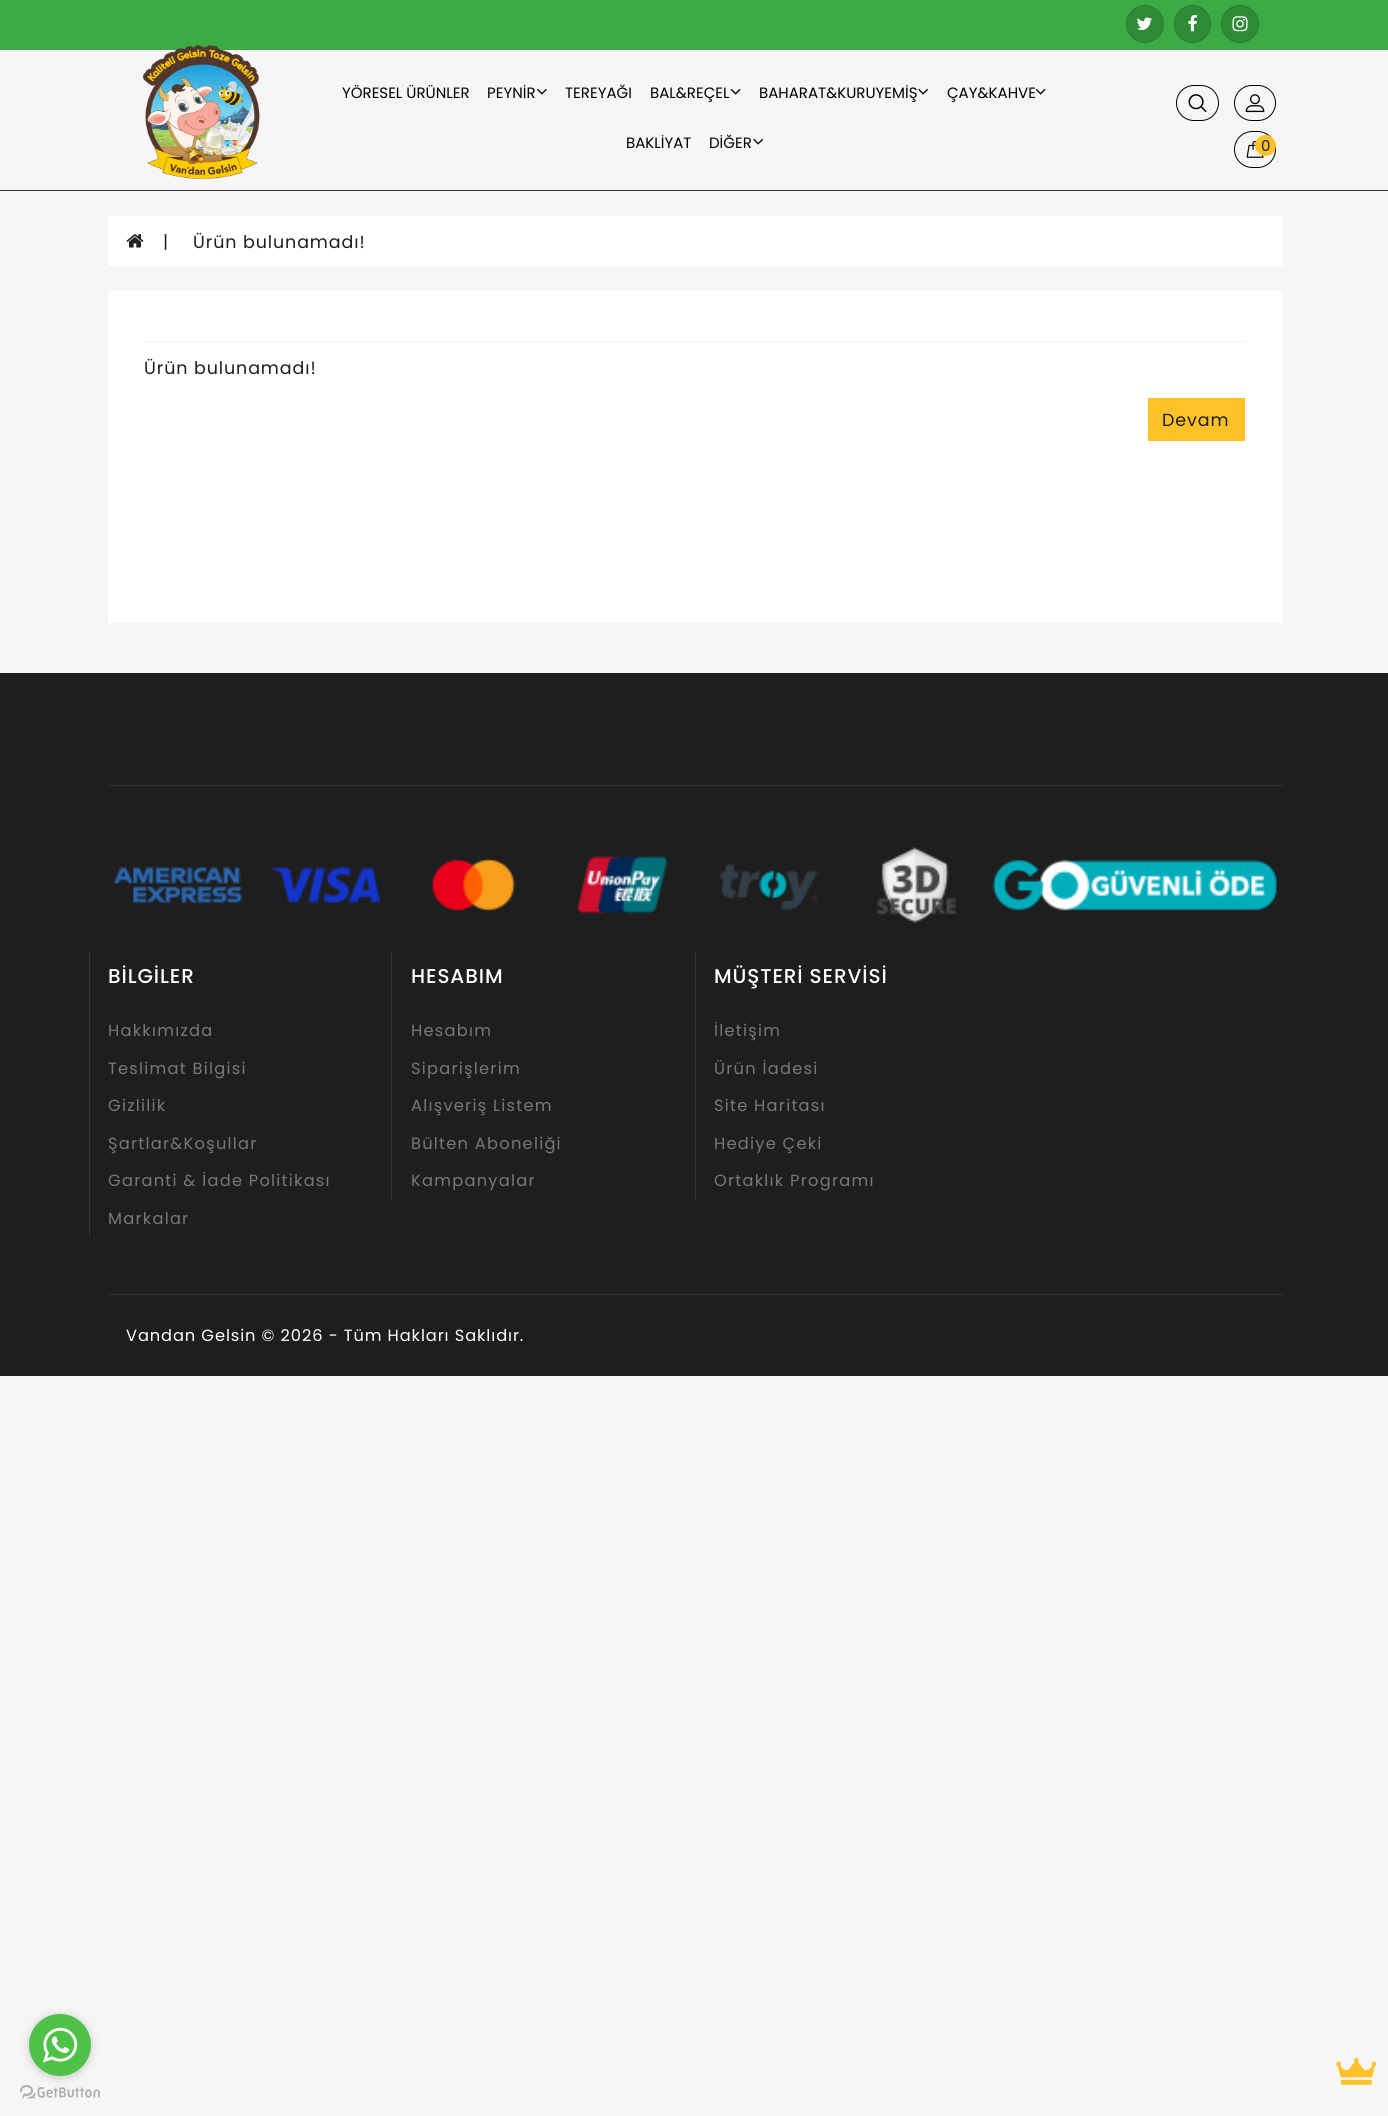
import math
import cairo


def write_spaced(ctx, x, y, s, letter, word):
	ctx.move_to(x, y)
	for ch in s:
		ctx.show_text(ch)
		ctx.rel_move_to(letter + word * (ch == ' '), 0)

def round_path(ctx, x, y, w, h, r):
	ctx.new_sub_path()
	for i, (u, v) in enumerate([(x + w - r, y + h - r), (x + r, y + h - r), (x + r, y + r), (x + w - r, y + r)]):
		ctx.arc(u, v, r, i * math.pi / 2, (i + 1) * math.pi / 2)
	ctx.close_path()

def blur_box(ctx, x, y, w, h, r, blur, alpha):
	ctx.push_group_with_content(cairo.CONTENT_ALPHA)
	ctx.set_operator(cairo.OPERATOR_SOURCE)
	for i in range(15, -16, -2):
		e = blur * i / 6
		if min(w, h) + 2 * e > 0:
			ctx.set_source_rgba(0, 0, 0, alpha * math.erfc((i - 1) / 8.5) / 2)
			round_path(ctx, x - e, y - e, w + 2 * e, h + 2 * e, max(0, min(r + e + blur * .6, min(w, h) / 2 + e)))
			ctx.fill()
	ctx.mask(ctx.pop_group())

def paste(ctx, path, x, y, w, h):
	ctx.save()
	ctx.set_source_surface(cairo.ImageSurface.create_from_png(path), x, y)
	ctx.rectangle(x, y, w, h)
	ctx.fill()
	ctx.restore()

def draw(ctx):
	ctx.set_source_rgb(0.961, 0.961, 0.961)
	ctx.paint()
	ctx.set_source_rgb(0.231, 0.675, 0.267)
	ctx.rectangle(0, 0, 1388, 50)
	ctx.fill()
	ctx.set_source_rgb(0.184, 0.541, 0.212)
	ctx.arc(1145, 24, 19, 0, 2 * math.pi)
	ctx.fill()
	ctx.arc(1145, 24, 18.5, 0, 2 * math.pi)
	ctx.set_source_rgba(0, 0, 0, 0.1)
	ctx.set_line_width(1)
	ctx.stroke()
	paste(ctx, 'media/1.png', 1136, 17, 16, 13)
	ctx.set_source_rgb(0.184, 0.541, 0.212)
	round_path(ctx, 1174, 5, 37, 38, 18.5)
	ctx.fill()
	round_path(ctx, 1174.5, 5.5, 36, 37, 18)
	ctx.set_source_rgba(0, 0, 0, 0.1)
	ctx.stroke()
	paste(ctx, 'media/2.png', 1188, 15, 9, 17)
	ctx.set_source_rgb(0.184, 0.541, 0.212)
	ctx.arc(1240, 24, 19, 0, 2 * math.pi)
	ctx.fill()
	ctx.arc(1240, 24, 18.5, 0, 2 * math.pi)
	ctx.set_source_rgba(0, 0, 0, 0.1)
	ctx.stroke()
	paste(ctx, 'media/3.png', 1232, 16, 16, 16)
	ctx.set_source_rgb(0.196, 0.196, 0.196)
	ctx.rectangle(0, 190, 1388, 1)
	ctx.fill()
	paste(ctx, 'media/4.png', 142, 45, 118, 135)
	ctx.select_font_face('Poppins')
	ctx.set_font_size(15)
	ctx.set_source_rgb(0, 0, 0)
	ctx.move_to(342, 98)
	ctx.show_text('YÖRESEL ÜRÜNLER')
	ctx.move_to(487, 98)
	ctx.show_text('PEYNİR')
	paste(ctx, 'media/5.png', 537, 88, 10, 7)
	ctx.move_to(565, 98)
	ctx.show_text('TEREYAĞI')
	ctx.move_to(650, 98)
	ctx.show_text('BAL&REÇEL')
	paste(ctx, 'media/6.png', 730, 88, 11, 7)
	ctx.move_to(759, 98)
	ctx.show_text('BAHARAT&KURUYEMİŞ')
	paste(ctx, 'media/7.png', 918, 88, 10, 7)
	ctx.move_to(947, 98)
	ctx.show_text('ÇAY&KAHVE')
	paste(ctx, 'media/6.png', 1035, 88, 11, 7)
	ctx.move_to(626, 148)
	ctx.show_text('BAKLİYAT')
	ctx.move_to(709, 148)
	ctx.show_text('DİĞER')
	paste(ctx, 'media/7.png', 753, 138, 10, 7)
	round_path(ctx, 1176.5, 85.5, 42, 35, 17.5)
	ctx.stroke()
	paste(ctx, 'media/8.png', 1188, 94, 19, 18)
	round_path(ctx, 1234.5, 85.5, 41, 35, 17.5)
	ctx.stroke()
	paste(ctx, 'media/9.png', 1245, 94, 20, 19)
	round_path(ctx, 1234.5, 131.5, 41, 36, 18)
	ctx.stroke()
	paste(ctx, 'media/10.png', 1246, 141, 18, 17)
	ctx.set_source_rgb(0.996, 0.761, 0.161)
	ctx.arc(1265.5, 145.5, 10.5, 0, 2 * math.pi)
	ctx.fill()
	ctx.set_source_rgb(0.118, 0.118, 0.118)
	ctx.move_to(1261, 151)
	ctx.show_text('0')
	ctx.set_source_rgb(1, 1, 1)
	ctx.rectangle(108, 216, 1175, 50)
	ctx.fill()
	paste(ctx, 'media/11.png', 126, 234, 18, 14)
	ctx.set_font_size(17.5)
	ctx.set_source_rgb(0.118, 0.118, 0.118)
	write_spaced(ctx, 163, 248, '|', 0.9, 0)
	write_spaced(ctx, 193, 248, 'Ürün bulunamadı!', 0.9, 0)
	ctx.set_source_rgb(1, 1, 1)
	ctx.rectangle(108, 291, 1175, 332)
	ctx.fill()
	ctx.set_source_rgb(0.941, 0.941, 0.941)
	ctx.rectangle(145, 341, 1100, 1)
	ctx.fill()
	ctx.set_source_rgb(0.118, 0.118, 0.118)
	write_spaced(ctx, 144, 374, 'Ürün bulunamadı!', 0.9, 0)
	ctx.set_source_rgb(0.996, 0.761, 0.161)
	ctx.rectangle(1148, 398, 97, 43)
	ctx.fill()
	ctx.set_source_rgb(0.118, 0.118, 0.118)
	write_spaced(ctx, 1162, 426, 'Devam', 0.9, 0)
	ctx.rectangle(0, 673, 1388, 703)
	ctx.fill()
	ctx.set_source_rgb(0.196, 0.196, 0.196)
	ctx.rectangle(108, 785, 1175, 1)
	ctx.fill()
	paste(ctx, 'media/12.png', 113, 847, 1164, 76)
	ctx.rectangle(89, 953, 1, 285)
	ctx.fill()
	ctx.select_font_face('Poppins Medium')
	ctx.set_font_size(20)
	ctx.set_source_rgb(1, 1, 1)
	write_spaced(ctx, 108, 983, 'BİLGİLER', 0.9, 0)
	ctx.select_font_face('Poppins')
	ctx.set_font_size(16.25)
	ctx.set_source_rgb(0.471, 0.471, 0.471)
	for x, y, s in [
		(108, 1036, 'Hakkımızda'),
		(108, 1074, 'Teslimat Bilgisi'),
		(108, 1111, 'Gizlilik'),
		(108, 1149, 'Şartlar&Koşullar'),
		(108, 1186, 'Garanti & İade Politikası'),
		(108, 1224, 'Markalar'),
	]:
		write_spaced(ctx, x, y, s, 1.25, 0)
	ctx.set_source_rgb(0.196, 0.196, 0.196)
	ctx.rectangle(391, 953, 1, 247)
	ctx.fill()
	ctx.select_font_face('Poppins Medium')
	ctx.set_font_size(20)
	ctx.set_source_rgb(1, 1, 1)
	write_spaced(ctx, 411, 983, 'HESABIM', 0.9, 0)
	ctx.select_font_face('Poppins')
	ctx.set_font_size(16.25)
	ctx.set_source_rgb(0.471, 0.471, 0.471)
	for x, y, s in [
		(411, 1036, 'Hesabım'),
		(411, 1074, 'Siparişlerim'),
		(411, 1111, 'Alışveriş Listem'),
		(411, 1149, 'Bülten Aboneliği'),
		(411, 1186, 'Kampanyalar'),
	]:
		write_spaced(ctx, x, y, s, 1.25, 0)
	ctx.set_source_rgb(0.196, 0.196, 0.196)
	ctx.rectangle(695, 953, 1, 247)
	ctx.fill()
	ctx.select_font_face('Poppins Medium')
	ctx.set_font_size(20)
	ctx.set_source_rgb(1, 1, 1)
	write_spaced(ctx, 714, 983, 'MÜŞTERİ SERVİSİ', 0.9, 0)
	ctx.select_font_face('Poppins')
	ctx.set_font_size(16.25)
	ctx.set_source_rgb(0.471, 0.471, 0.471)
	for x, y, s in [
		(714, 1036, 'İletişim'),
		(714, 1074, 'Ürün İadesi'),
		(714, 1111, 'Site Haritası'),
		(714, 1149, 'Hediye Çeki'),
		(714, 1186, 'Ortaklık Programı'),
	]:
		write_spaced(ctx, x, y, s, 1.25, 0)
	ctx.set_source_rgb(0.196, 0.196, 0.196)
	ctx.rectangle(108, 1294, 1175, 1)
	ctx.fill()
	ctx.set_source_rgb(1, 1, 1)
	write_spaced(ctx, 126, 1341, 'Vandan Gelsin © 2026 - Tüm Hakları Saklıdır.', 0.9, 0)
	paste(ctx, 'media/14.png', 20, 2085, 80, 14)
	ctx.set_source_rgb(0.533, 0.533, 0.533)
	blur_box(ctx, 29, 2015, 62, 63, 31, 4.5, 0.4)
	ctx.set_source_rgb(0.302, 0.761, 0.278)
	ctx.arc(60, 2045, 31, 0, 2 * math.pi)
	ctx.fill()
	paste(ctx, 'media/13.png', 42, 2027, 36, 36)
	paste(ctx, 'media/15.png', 1336, 2057, 40, 28)


surface = cairo.ImageSurface(cairo.FORMAT_RGB24, 1388, 2116)
ctx = cairo.Context(surface)
options = cairo.FontOptions()
options.set_hint_metrics(cairo.HINT_METRICS_OFF)
options.set_hint_style(cairo.HINT_STYLE_NONE)
ctx.set_font_options(options)
ctx.set_miter_limit(4)
draw(ctx)
surface.write_to_png('image.png')
